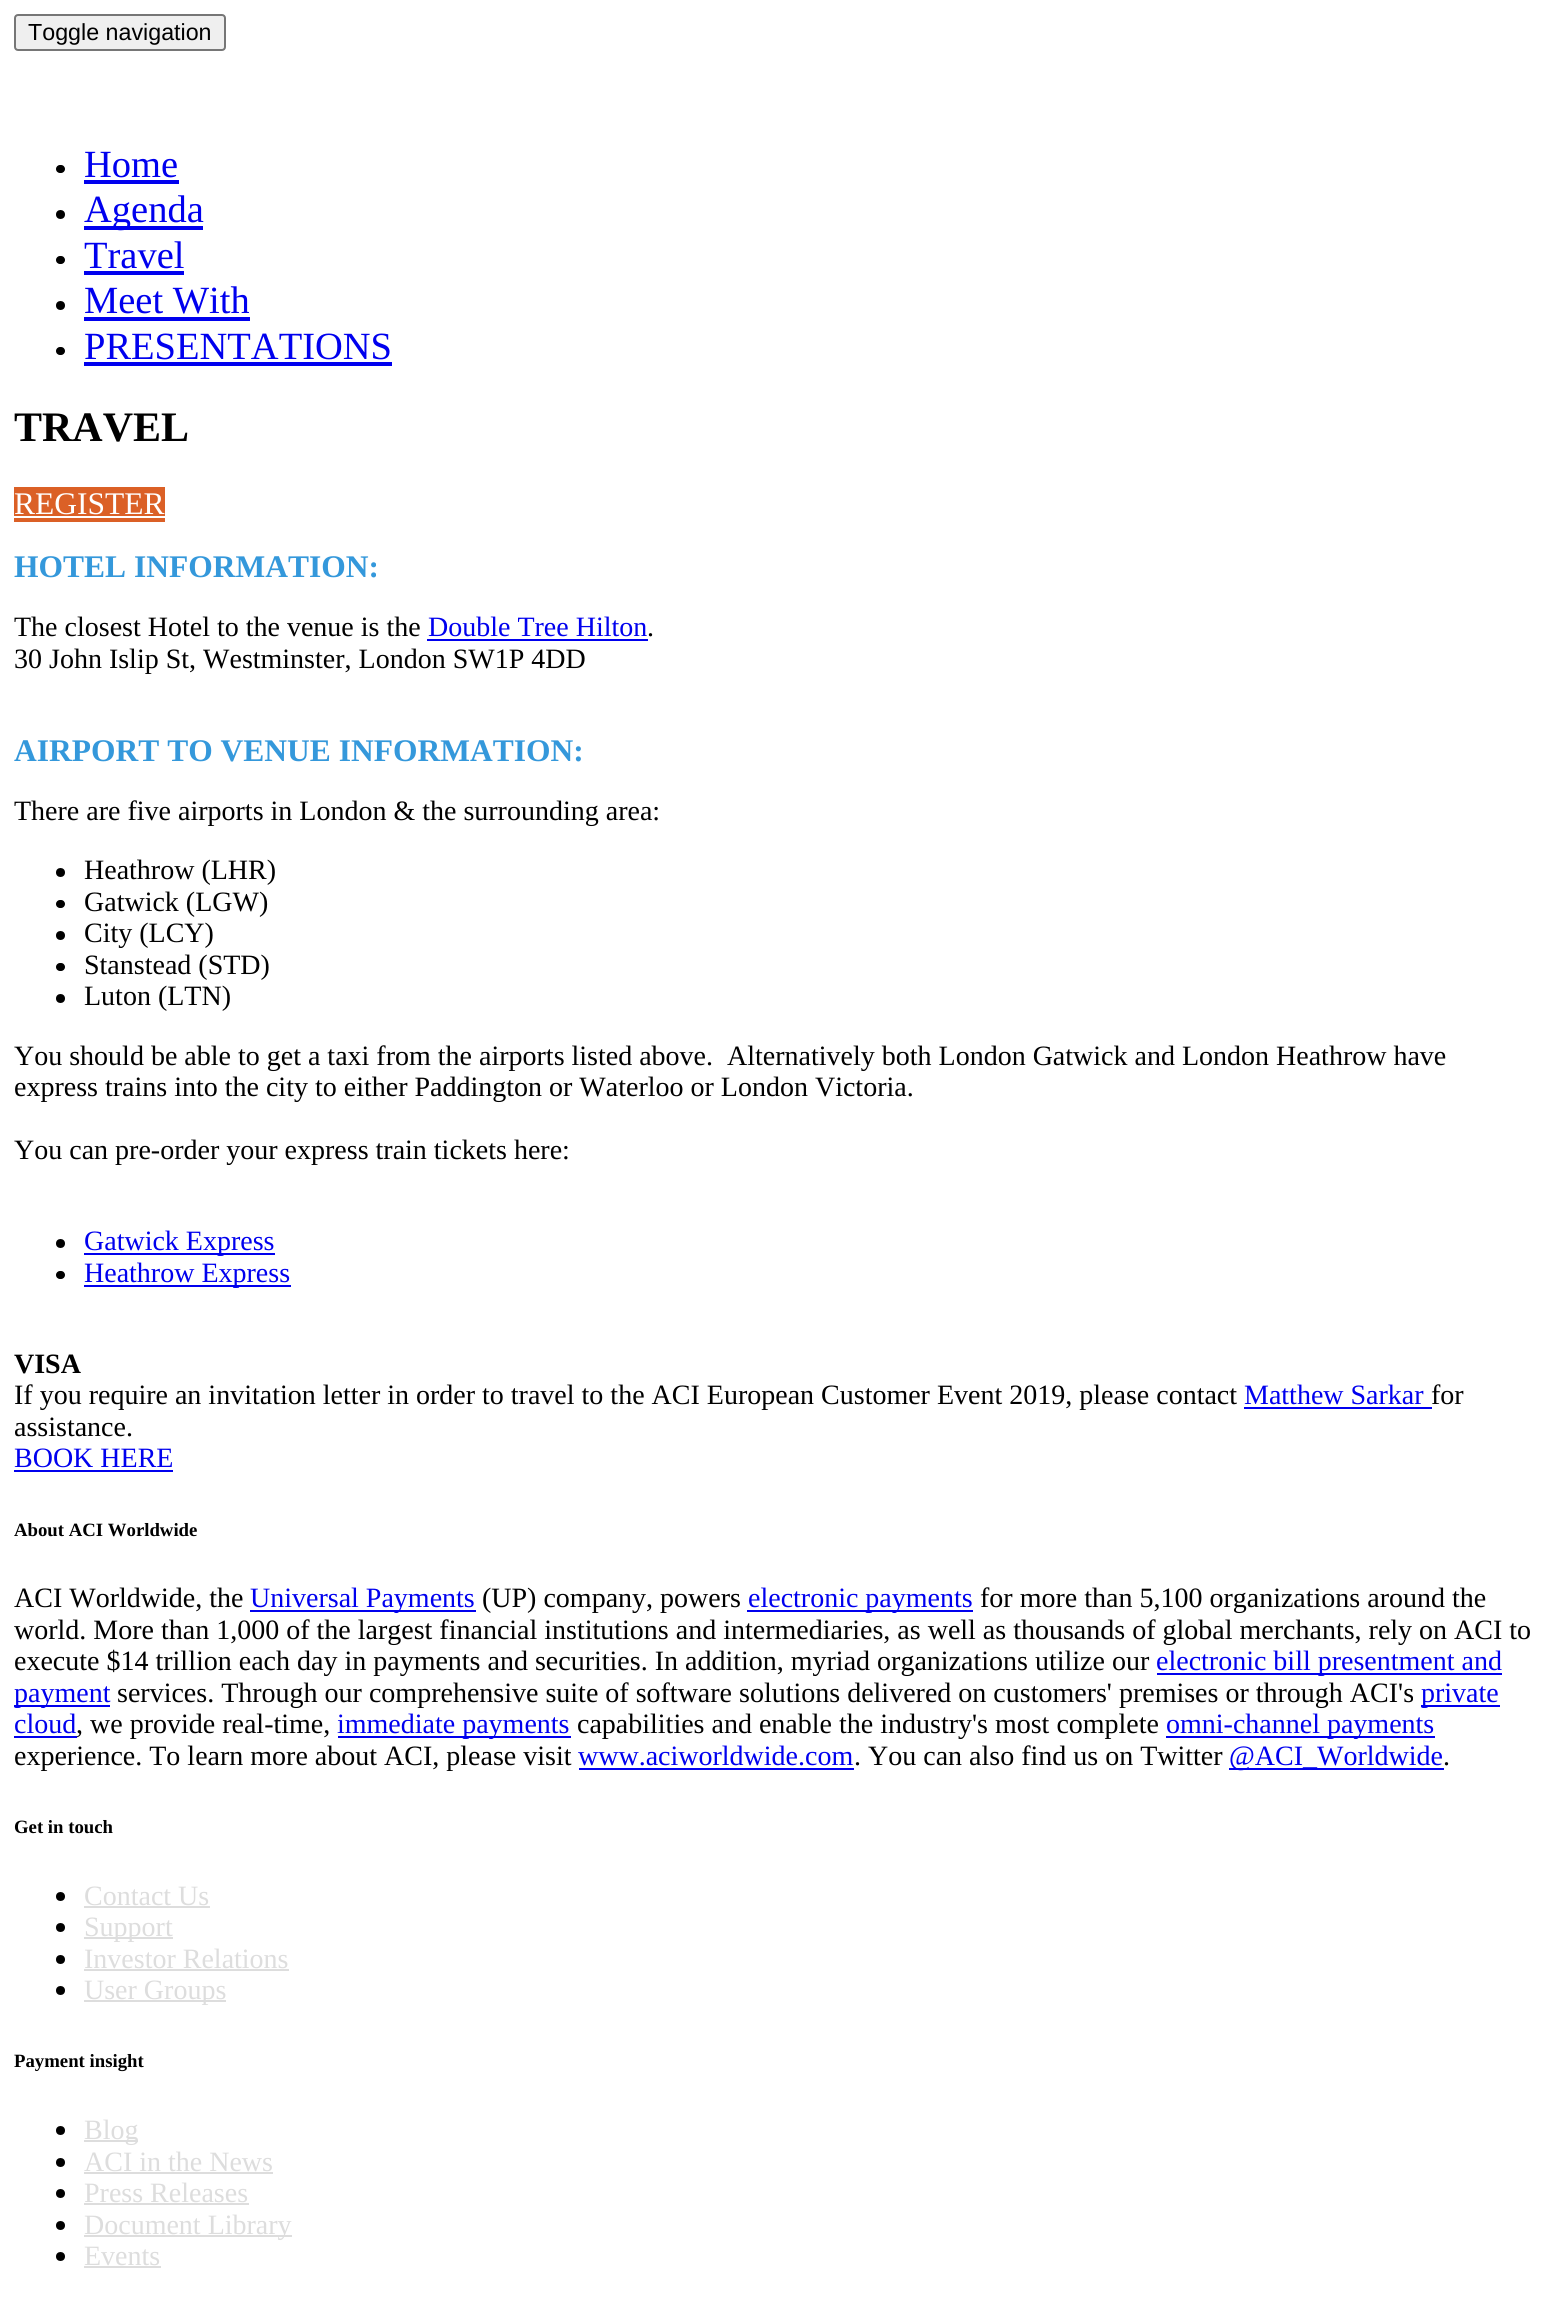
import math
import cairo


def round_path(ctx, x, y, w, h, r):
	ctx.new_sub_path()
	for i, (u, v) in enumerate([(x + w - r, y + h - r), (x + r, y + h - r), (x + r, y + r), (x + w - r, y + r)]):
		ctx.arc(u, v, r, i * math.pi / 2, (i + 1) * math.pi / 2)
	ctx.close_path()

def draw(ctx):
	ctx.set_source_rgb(1, 1, 1)
	ctx.paint()
	ctx.set_source_rgb(0.937, 0.937, 0.937)
	round_path(ctx, 15, 15, 210, 35, 3)
	ctx.fill_preserve()
	ctx.set_source_rgb(0.463, 0.463, 0.463)
	ctx.stroke()
	ctx.select_font_face('Liberation Sans')
	ctx.set_font_size(23.25)
	ctx.set_source_rgb(0, 0, 0)
	ctx.move_to(28, 40)
	ctx.show_text('Toggle navigation')
	round_path(ctx, 56, 165, 9, 8, 4)
	ctx.fill()
	ctx.select_font_face('Liberation Serif')
	ctx.set_font_size(38.5)
	ctx.set_source_rgb(0, 0, 0.933)
	ctx.move_to(84, 177)
	ctx.show_text('Home')
	ctx.rectangle(84, 180, 95, 4)
	ctx.fill()
	ctx.set_source_rgb(0, 0, 0)
	ctx.arc(60.5, 214.5, 4.5, 0, 2 * math.pi)
	ctx.fill()
	ctx.set_source_rgb(0, 0, 0.933)
	ctx.rectangle(84, 226, 119, 4)
	ctx.fill()
	ctx.move_to(84, 222)
	ctx.show_text('Agenda')
	ctx.set_source_rgb(0, 0, 0)
	round_path(ctx, 56, 256, 9, 8, 4)
	ctx.fill()
	ctx.set_source_rgb(0, 0, 0.933)
	ctx.move_to(84, 268)
	ctx.show_text('Travel')
	ctx.rectangle(84, 271, 100, 4)
	ctx.fill()
	ctx.set_source_rgb(0, 0, 0)
	ctx.arc(60.5, 305.5, 4.5, 0, 2 * math.pi)
	ctx.fill()
	ctx.set_source_rgb(0, 0, 0.933)
	ctx.move_to(84, 313)
	ctx.show_text('Meet With')
	ctx.rectangle(84, 317, 166, 4)
	ctx.fill()
	ctx.set_source_rgb(0, 0, 0)
	round_path(ctx, 56, 347, 9, 8, 4)
	ctx.fill()
	ctx.set_source_rgb(0, 0, 0.933)
	ctx.move_to(84, 359)
	ctx.show_text('PRESENTATIONS')
	ctx.rectangle(84, 362, 308, 4)
	ctx.fill()
	ctx.select_font_face('Liberation Serif', cairo.FONT_SLANT_NORMAL, cairo.FONT_WEIGHT_BOLD)
	ctx.set_font_size(42)
	ctx.set_source_rgb(0, 0, 0)
	ctx.move_to(14, 441)
	ctx.show_text('TRAVEL')
	ctx.set_source_rgb(0.859, 0.376, 0.149)
	ctx.rectangle(14, 487, 151, 35)
	ctx.fill()
	ctx.select_font_face('Liberation Serif')
	ctx.set_font_size(31.5)
	ctx.set_source_rgb(1, 1, 1)
	ctx.move_to(14, 514)
	ctx.show_text('REGISTER')
	ctx.rectangle(14, 516, 151, 2)
	ctx.fill()
	ctx.select_font_face('Liberation Serif', cairo.FONT_SLANT_NORMAL, cairo.FONT_WEIGHT_BOLD)
	ctx.set_source_rgb(0.204, 0.596, 0.859)
	ctx.move_to(14, 577)
	ctx.show_text('HOTEL INFORMATION:')
	ctx.select_font_face('Liberation Serif')
	ctx.set_font_size(28)
	ctx.set_source_rgb(0, 0, 0)
	ctx.move_to(14, 636)
	ctx.show_text('The closest Hotel to the venue is the')
	ctx.set_source_rgb(0, 0, 0.933)
	ctx.move_to(428, 636)
	ctx.show_text('Double Tree Hilton')
	ctx.rectangle(427, 639, 221, 2)
	ctx.fill()
	ctx.set_source_rgb(0, 0, 0)
	ctx.move_to(647, 636)
	ctx.show_text('.')
	ctx.move_to(14, 668)
	ctx.show_text('30 John Islip St, Westminster, London SW1P 4DD')
	ctx.select_font_face('Liberation Serif', cairo.FONT_SLANT_NORMAL, cairo.FONT_WEIGHT_BOLD)
	ctx.set_font_size(31.5)
	ctx.set_source_rgb(0.204, 0.596, 0.859)
	ctx.move_to(14, 761)
	ctx.show_text('AIRPORT TO VENUE INFORMATION:')
	ctx.select_font_face('Liberation Serif')
	ctx.set_font_size(28)
	ctx.set_source_rgb(0, 0, 0)
	ctx.move_to(14, 820)
	ctx.show_text('There are five airports in London & the surrounding area:')
	ctx.new_path()
	ctx.arc(60.5, 872.5, 4.5, 0, 2 * math.pi)
	ctx.fill()
	ctx.move_to(84, 879)
	ctx.show_text('Heathrow (LHR)')
	round_path(ctx, 56, 900, 9, 8, 4)
	ctx.fill()
	ctx.move_to(84, 911)
	ctx.show_text('Gatwick (LGW)')
	ctx.new_path()
	ctx.arc(60.5, 935.5, 4.5, 0, 2 * math.pi)
	ctx.fill()
	ctx.move_to(84, 942)
	ctx.show_text('City (LCY)')
	round_path(ctx, 56, 963, 9, 8, 4)
	ctx.fill()
	ctx.move_to(84, 974)
	ctx.show_text('Stanstead (STD)')
	ctx.new_path()
	ctx.arc(60.5, 998.5, 4.5, 0, 2 * math.pi)
	ctx.fill()
	for x, y, s in [
		(84, 1005, 'Luton (LTN)'),
		(14, 1065, 'You should be able to get a taxi from the airports listed above.  Alternatively both London Gatwick and London Heathrow have'),
		(14, 1096, 'express trains into the city to either Paddington or Waterloo or London Victoria.'),
		(14, 1159, 'You can pre-order your express train tickets here:'),
	]:
		ctx.move_to(x, y)
		ctx.show_text(s)
	ctx.new_path()
	ctx.arc(60.5, 1243.5, 4.5, 0, 2 * math.pi)
	ctx.fill()
	ctx.set_source_rgb(0, 0, 0.933)
	ctx.rectangle(84, 1253, 191, 2)
	ctx.fill()
	ctx.move_to(84, 1250)
	ctx.show_text('Gatwick Express')
	ctx.set_source_rgb(0, 0, 0)
	round_path(ctx, 56, 1271, 9, 8, 4)
	ctx.fill()
	ctx.set_source_rgb(0, 0, 0.933)
	ctx.rectangle(84, 1285, 207, 2)
	ctx.fill()
	ctx.move_to(84, 1282)
	ctx.show_text('Heathrow Express')
	ctx.select_font_face('Liberation Serif', cairo.FONT_SLANT_NORMAL, cairo.FONT_WEIGHT_BOLD)
	ctx.set_source_rgb(0, 0, 0)
	ctx.move_to(14, 1373)
	ctx.show_text('VISA')
	ctx.select_font_face('Liberation Serif')
	ctx.move_to(14, 1404)
	ctx.show_text('If you require an invitation letter in order to travel to the ACI European Customer Event 2019, please contact')
	ctx.set_source_rgb(0, 0, 0.933)
	ctx.move_to(1244, 1404)
	ctx.show_text('Matthew Sarkar')
	ctx.rectangle(1244, 1407, 188, 2)
	ctx.fill()
	ctx.set_source_rgb(0, 0, 0)
	ctx.move_to(1431, 1404)
	ctx.show_text('for')
	ctx.move_to(14, 1436)
	ctx.show_text('assistance.')
	ctx.set_source_rgb(0, 0, 0.933)
	ctx.move_to(14, 1467)
	ctx.show_text('BOOK HERE')
	ctx.rectangle(14, 1470, 159, 2)
	ctx.fill()
	ctx.select_font_face('Liberation Serif', cairo.FONT_SLANT_NORMAL, cairo.FONT_WEIGHT_BOLD)
	ctx.set_font_size(18.75)
	ctx.set_source_rgb(0, 0, 0)
	ctx.move_to(14, 1536)
	ctx.show_text('About ACI Worldwide')
	ctx.select_font_face('Liberation Serif')
	ctx.set_font_size(28)
	ctx.move_to(14, 1607)
	ctx.show_text('ACI Worldwide, the')
	ctx.set_source_rgb(0, 0, 0.933)
	ctx.rectangle(250, 1610, 226, 2)
	ctx.fill()
	ctx.move_to(250, 1607)
	ctx.show_text('Universal Payments')
	ctx.set_source_rgb(0, 0, 0)
	ctx.move_to(482, 1607)
	ctx.show_text('(UP) company, powers')
	ctx.set_source_rgb(0, 0, 0.933)
	ctx.rectangle(747, 1610, 226, 2)
	ctx.fill()
	ctx.move_to(748, 1607)
	ctx.show_text('electronic payments')
	ctx.set_source_rgb(0, 0, 0)
	for x, y, s in [
		(980, 1607, 'for more than 5,100 organizations around the'),
		(14, 1639, 'world. More than 1,000 of the largest financial institutions and intermediaries, as well as thousands of global merchants, rely on ACI to'),
		(14, 1670, 'execute $14 trillion each day in payments and securities. In addition, myriad organizations utilize our'),
	]:
		ctx.move_to(x, y)
		ctx.show_text(s)
	ctx.set_source_rgb(0, 0, 0.933)
	ctx.rectangle(1157, 1673, 345, 2)
	ctx.fill()
	ctx.move_to(1156, 1670)
	ctx.show_text('electronic bill presentment and')
	ctx.rectangle(14, 1705, 96, 2)
	ctx.fill()
	ctx.move_to(14, 1702)
	ctx.show_text('payment')
	ctx.set_source_rgb(0, 0, 0)
	ctx.move_to(117, 1702)
	ctx.show_text('services. Through our comprehensive suite of software solutions delivered on customers\' premises or through ACI\'s')
	ctx.set_source_rgb(0, 0, 0.933)
	ctx.rectangle(1421, 1705, 79, 2)
	ctx.fill()
	ctx.move_to(1421, 1702)
	ctx.show_text('private')
	ctx.move_to(14, 1733)
	ctx.show_text('cloud')
	ctx.rectangle(14, 1736, 63, 2)
	ctx.fill()
	ctx.set_source_rgb(0, 0, 0)
	ctx.move_to(76, 1733)
	ctx.show_text(', we provide real-time,')
	ctx.set_source_rgb(0, 0, 0.933)
	ctx.rectangle(338, 1736, 233, 2)
	ctx.fill()
	ctx.move_to(337, 1733)
	ctx.show_text('immediate payments')
	ctx.set_source_rgb(0, 0, 0)
	ctx.move_to(577, 1733)
	ctx.show_text('capabilities and enable the industry\'s most complete')
	ctx.set_source_rgb(0, 0, 0.933)
	ctx.rectangle(1166, 1736, 269, 2)
	ctx.fill()
	ctx.move_to(1166, 1733)
	ctx.show_text('omni-channel payments')
	ctx.set_source_rgb(0, 0, 0)
	ctx.move_to(14, 1765)
	ctx.show_text('experience. To learn more about ACI, please visit')
	ctx.set_source_rgb(0, 0, 0.933)
	ctx.move_to(578, 1765)
	ctx.show_text('www.aciworldwide.com')
	ctx.rectangle(579, 1768, 275, 2)
	ctx.fill()
	ctx.set_source_rgb(0, 0, 0)
	ctx.move_to(854, 1765)
	ctx.show_text('. You can also find us on Twitter')
	ctx.set_source_rgb(0, 0, 0.933)
	ctx.rectangle(1229, 1768, 215, 2)
	ctx.fill()
	ctx.move_to(1229, 1765)
	ctx.show_text('@ACI_Worldwide')
	ctx.set_source_rgb(0, 0, 0)
	ctx.move_to(1443, 1765)
	ctx.show_text('.')
	ctx.select_font_face('Liberation Serif', cairo.FONT_SLANT_NORMAL, cairo.FONT_WEIGHT_BOLD)
	ctx.set_font_size(18.75)
	ctx.move_to(14, 1833)
	ctx.show_text('Get in touch')
	ctx.new_path()
	ctx.arc(60.5, 1896.5, 4.5, 0, 2 * math.pi)
	ctx.fill()
	ctx.select_font_face('Liberation Serif')
	ctx.set_font_size(28)
	ctx.set_source_rgb(0.867, 0.867, 0.867)
	ctx.move_to(84, 1905)
	ctx.show_text('Contact Us')
	ctx.rectangle(84, 1906, 126, 2)
	ctx.fill()
	ctx.set_source_rgb(0, 0, 0)
	ctx.arc(60.5, 1927.5, 4.5, 0, 2 * math.pi)
	ctx.fill()
	ctx.set_source_rgb(0.867, 0.867, 0.867)
	ctx.rectangle(84, 1937, 89, 2)
	ctx.fill()
	ctx.move_to(84, 1936)
	ctx.show_text('Support')
	ctx.set_source_rgb(0, 0, 0)
	ctx.new_path()
	ctx.arc(60.5, 1959.5, 4.5, 0, 2 * math.pi)
	ctx.fill()
	ctx.set_source_rgb(0.867, 0.867, 0.867)
	ctx.move_to(84, 1968)
	ctx.show_text('Investor Relations')
	ctx.rectangle(84, 1969, 205, 2)
	ctx.fill()
	ctx.set_source_rgb(0, 0, 0)
	ctx.arc(60.5, 1990.5, 4.5, 0, 2 * math.pi)
	ctx.fill()
	ctx.set_source_rgb(0.867, 0.867, 0.867)
	ctx.rectangle(84, 2000, 142, 2)
	ctx.fill()
	ctx.move_to(84, 1999)
	ctx.show_text('User Groups')
	ctx.select_font_face('Liberation Serif', cairo.FONT_SLANT_NORMAL, cairo.FONT_WEIGHT_BOLD)
	ctx.set_font_size(18.75)
	ctx.set_source_rgb(0, 0, 0)
	ctx.move_to(14, 2067)
	ctx.show_text('Payment insight')
	ctx.new_path()
	ctx.arc(60.5, 2130.5, 4.5, 0, 2 * math.pi)
	ctx.fill()
	ctx.set_source_rgb(0.867, 0.867, 0.867)
	ctx.rectangle(84, 2140, 54, 2)
	ctx.fill()
	ctx.select_font_face('Liberation Serif')
	ctx.set_font_size(28)
	ctx.move_to(84, 2139)
	ctx.show_text('Blog')
	ctx.set_source_rgb(0, 0, 0)
	ctx.new_path()
	ctx.arc(60.5, 2162.5, 4.5, 0, 2 * math.pi)
	ctx.fill()
	ctx.set_source_rgb(0.867, 0.867, 0.867)
	ctx.move_to(84, 2171)
	ctx.show_text('ACI in the News')
	ctx.rectangle(84, 2172, 189, 2)
	ctx.fill()
	ctx.set_source_rgb(0, 0, 0)
	ctx.arc(60.5, 2193.5, 4.5, 0, 2 * math.pi)
	ctx.fill()
	ctx.set_source_rgb(0.867, 0.867, 0.867)
	ctx.move_to(84, 2202)
	ctx.show_text('Press Releases')
	ctx.rectangle(84, 2203, 165, 2)
	ctx.fill()
	ctx.set_source_rgb(0, 0, 0)
	ctx.arc(60.5, 2225.5, 4.5, 0, 2 * math.pi)
	ctx.fill()
	ctx.set_source_rgb(0.867, 0.867, 0.867)
	ctx.rectangle(84, 2235, 208, 2)
	ctx.fill()
	ctx.move_to(84, 2234)
	ctx.show_text('Document Library')
	ctx.set_source_rgb(0, 0, 0)
	ctx.new_path()
	ctx.arc(60.5, 2256.5, 4.5, 0, 2 * math.pi)
	ctx.fill()
	ctx.set_source_rgb(0.867, 0.867, 0.867)
	ctx.move_to(84, 2265)
	ctx.show_text('Events')
	ctx.rectangle(84, 2266, 77, 2)
	ctx.fill()


surface = cairo.ImageSurface(cairo.FORMAT_RGB24, 1550, 2304)
ctx = cairo.Context(surface)
options = cairo.FontOptions()
options.set_hint_metrics(cairo.HINT_METRICS_OFF)
options.set_hint_style(cairo.HINT_STYLE_NONE)
ctx.set_font_options(options)
ctx.set_miter_limit(4)
draw(ctx)
surface.write_to_png('image.png')
